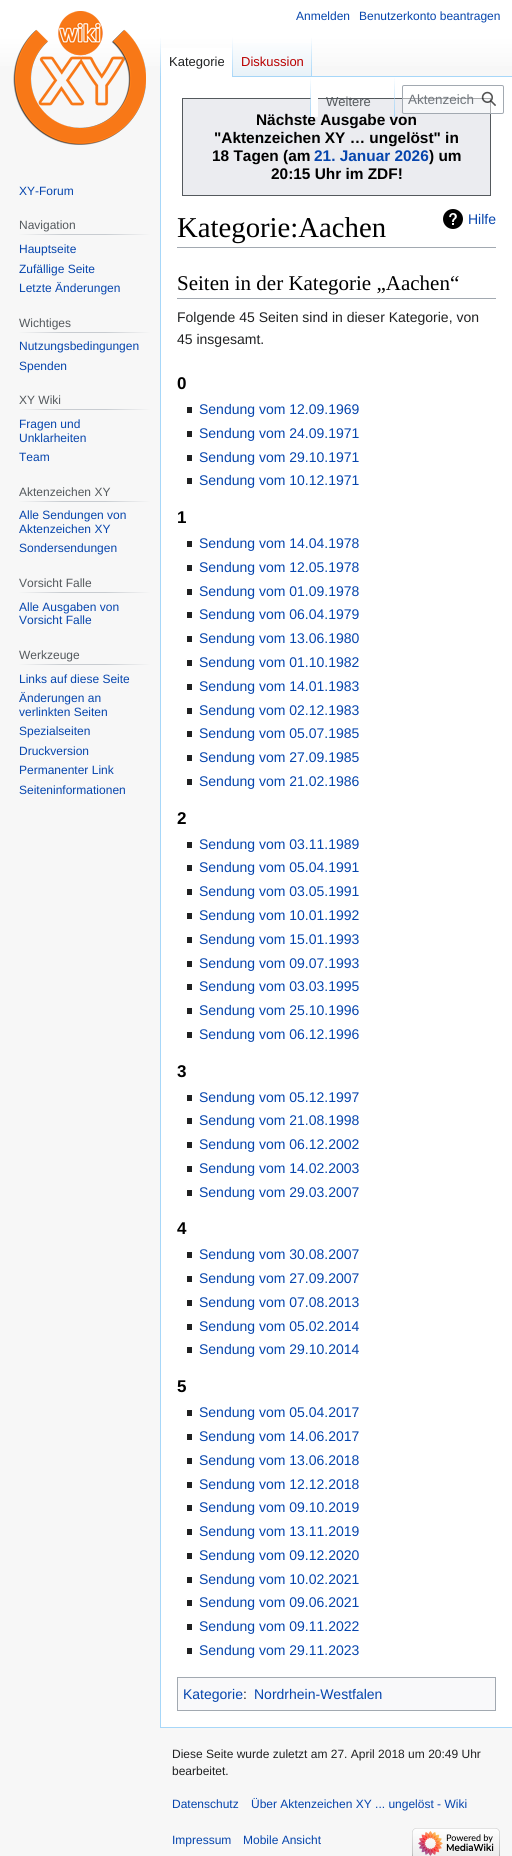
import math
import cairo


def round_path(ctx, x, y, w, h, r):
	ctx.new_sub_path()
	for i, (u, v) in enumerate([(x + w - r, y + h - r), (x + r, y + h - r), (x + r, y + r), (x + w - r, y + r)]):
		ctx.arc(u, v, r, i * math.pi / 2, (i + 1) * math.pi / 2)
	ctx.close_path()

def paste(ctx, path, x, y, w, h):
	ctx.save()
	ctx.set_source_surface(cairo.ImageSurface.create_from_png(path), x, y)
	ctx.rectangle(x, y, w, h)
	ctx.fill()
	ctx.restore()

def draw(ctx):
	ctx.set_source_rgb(0.965, 0.965, 0.965)
	ctx.paint()
	gradient = cairo.LinearGradient(256, -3, 256, 77)
	gradient.add_color_stop_rgba(0.5, 1, 1, 1, 1)
	gradient.add_color_stop_rgba(1, 0.965, 0.965, 0.965, 1)
	ctx.set_source(gradient)
	ctx.rectangle(0, 0, 512, 66)
	ctx.fill()
	ctx.select_font_face('Liberation Sans')
	ctx.set_font_size(12)
	ctx.set_source_rgb(0.024, 0.271, 0.678)
	ctx.move_to(296, 20)
	ctx.show_text('Anmelden')
	ctx.move_to(359, 20)
	ctx.show_text('Benutzerkonto beantragen')
	ctx.set_source_rgb(0.655, 0.843, 0.976)
	ctx.rectangle(160, 1727, 352, 1)
	ctx.fill()
	ctx.rectangle(160, 76, 1, 1652)
	ctx.fill()
	gradient = cairo.LinearGradient(161, 37, 161, 77)
	gradient.add_color_stop_rgba(0, 0.655, 0.843, 0.976, 0)
	gradient.add_color_stop_rgba(1, 0.655, 0.843, 0.976, 1)
	ctx.set_source(gradient)
	ctx.rectangle(160, 37, 1, 40)
	ctx.fill()
	ctx.set_source_rgb(1, 1, 1)
	ctx.rectangle(161, 48, 71, 29)
	ctx.fill()
	gradient = cairo.LinearGradient(233, 37, 233, 77)
	gradient.add_color_stop_rgba(0, 1, 1, 1, 1)
	gradient.add_color_stop_rgba(1, 0.655, 0.843, 0.976, 1)
	ctx.set_source(gradient)
	ctx.rectangle(232, 37, 1, 40)
	ctx.fill()
	ctx.set_font_size(13)
	ctx.set_source_rgb(0.125, 0.129, 0.133)
	ctx.move_to(169, 66)
	ctx.show_text('Kategorie')
	gradient = cairo.LinearGradient(273, 77, 273, 37)
	gradient.add_color_stop_rgba(0, 0.467, 0.757, 0.965, 1)
	gradient.add_color_stop_rgba(0.03, 0.91, 0.949, 0.973, 1)
	gradient.add_color_stop_rgba(1, 1, 1, 1, 1)
	ctx.set_source(gradient)
	ctx.rectangle(233, 43, 79, 34)
	ctx.fill()
	gradient = cairo.LinearGradient(312, 37, 312, 77)
	gradient.add_color_stop_rgba(0, 0.655, 0.843, 0.976, 0)
	gradient.add_color_stop_rgba(1, 0.655, 0.843, 0.976, 1)
	ctx.set_source(gradient)
	ctx.rectangle(311, 37, 1, 40)
	ctx.fill()
	ctx.set_source_rgb(0.729, 0, 0)
	ctx.move_to(241, 66)
	ctx.show_text('Diskussion')
	ctx.set_source_rgb(1, 1, 1)
	ctx.rectangle(161, 77, 351, 1650)
	ctx.fill()
	ctx.set_source_rgb(0.918, 0.925, 0.941)
	ctx.rectangle(182.5, 98.5, 308, 97)
	ctx.fill_preserve()
	ctx.set_source_rgb(0.329, 0.349, 0.365)
	ctx.set_line_width(1)
	ctx.stroke()
	ctx.select_font_face('Liberation Sans', cairo.FONT_SLANT_NORMAL, cairo.FONT_WEIGHT_BOLD)
	ctx.set_font_size(15.4)
	ctx.set_source_rgb(0, 0, 0)
	ctx.move_to(256, 125)
	ctx.show_text('Nächste Ausgabe von')
	gradient = cairo.LinearGradient(311, 77, 311, 117)
	gradient.add_color_stop_rgba(0, 0.655, 0.843, 0.976, 0)
	gradient.add_color_stop_rgba(1, 0.655, 0.843, 0.976, 1)
	ctx.set_source(gradient)
	ctx.rectangle(310, 77, 1, 40)
	ctx.fill()
	ctx.set_source_rgb(1, 1, 1)
	ctx.rectangle(311, 98, 7, 19)
	ctx.fill()
	gradient = cairo.LinearGradient(395, 77, 395, 117)
	gradient.add_color_stop_rgba(0, 0.655, 0.843, 0.976, 0)
	gradient.add_color_stop_rgba(1, 0.655, 0.843, 0.976, 1)
	ctx.set_source(gradient)
	ctx.rectangle(394, 77, 1, 40)
	ctx.fill()
	ctx.select_font_face('Liberation Sans')
	ctx.set_font_size(13)
	ctx.set_source_rgb(0.329, 0.349, 0.365)
	ctx.move_to(326, 106)
	ctx.show_text('Weitere')
	ctx.set_source_rgba(1, 1, 1, 0.5)
	round_path(ctx, 402.5, 85.5, 101, 28, 1.5)
	ctx.fill_preserve()
	ctx.set_source_rgb(0.635, 0.663, 0.694)
	ctx.stroke()
	ctx.set_font_size(13.5)
	ctx.set_source_rgb(0.447, 0.467, 0.49)
	ctx.move_to(408, 104)
	ctx.show_text('Aktenzeich')
	paste(ctx, 'media/1.png', 481, 91, 15, 15)
	paste(ctx, 'media/2.png', 13, 11, 133, 134)
	ctx.set_font_size(12)
	ctx.set_source_rgb(0.024, 0.271, 0.678)
	ctx.move_to(19, 195)
	ctx.show_text('XY-Forum')
	gradient = cairo.LinearGradient(19, 235, 150, 235)
	gradient.add_color_stop_rgba(0, 0.965, 0.965, 0.965, 1)
	gradient.add_color_stop_rgba(0.33, 0.784, 0.8, 0.82, 1)
	gradient.add_color_stop_rgba(0.66, 0.784, 0.8, 0.82, 1)
	gradient.add_color_stop_rgba(1, 0.965, 0.965, 0.965, 1)
	ctx.set_source(gradient)
	ctx.rectangle(19, 234, 131, 1)
	ctx.fill()
	ctx.set_source_rgb(0.329, 0.349, 0.365)
	ctx.move_to(19, 229)
	ctx.show_text('Navigation')
	ctx.set_source_rgb(0.024, 0.271, 0.678)
	for x, y, s in [
		(19, 253, 'Hauptseite'),
		(19, 273, 'Zufällige Seite'),
		(19, 292, 'Letzte Änderungen'),
	]:
		ctx.move_to(x, y)
		ctx.show_text(s)
	gradient = cairo.LinearGradient(19, 333, 150, 333)
	gradient.add_color_stop_rgba(0, 0.965, 0.965, 0.965, 1)
	gradient.add_color_stop_rgba(0.33, 0.784, 0.8, 0.82, 1)
	gradient.add_color_stop_rgba(0.66, 0.784, 0.8, 0.82, 1)
	gradient.add_color_stop_rgba(1, 0.965, 0.965, 0.965, 1)
	ctx.set_source(gradient)
	ctx.rectangle(19, 332, 131, 1)
	ctx.fill()
	ctx.set_source_rgb(0.329, 0.349, 0.365)
	ctx.move_to(19, 327)
	ctx.show_text('Wichtiges')
	ctx.set_source_rgb(0.024, 0.271, 0.678)
	ctx.move_to(19, 350)
	ctx.show_text('Nutzungsbedingungen')
	ctx.move_to(19, 370)
	ctx.show_text('Spenden')
	gradient = cairo.LinearGradient(19, 410, 150, 410)
	gradient.add_color_stop_rgba(0, 0.965, 0.965, 0.965, 1)
	gradient.add_color_stop_rgba(0.33, 0.784, 0.8, 0.82, 1)
	gradient.add_color_stop_rgba(0.66, 0.784, 0.8, 0.82, 1)
	gradient.add_color_stop_rgba(1, 0.965, 0.965, 0.965, 1)
	ctx.set_source(gradient)
	ctx.rectangle(19, 409, 131, 1)
	ctx.fill()
	ctx.set_source_rgb(0.329, 0.349, 0.365)
	ctx.move_to(19, 404)
	ctx.show_text('XY Wiki')
	ctx.set_source_rgb(0.024, 0.271, 0.678)
	for x, y, s in [
		(19, 428, 'Fragen und'),
		(19, 442, 'Unklarheiten'),
		(19, 461, 'Team'),
	]:
		ctx.move_to(x, y)
		ctx.show_text(s)
	gradient = cairo.LinearGradient(19, 502, 150, 502)
	gradient.add_color_stop_rgba(0, 0.965, 0.965, 0.965, 1)
	gradient.add_color_stop_rgba(0.33, 0.784, 0.8, 0.82, 1)
	gradient.add_color_stop_rgba(0.66, 0.784, 0.8, 0.82, 1)
	gradient.add_color_stop_rgba(1, 0.965, 0.965, 0.965, 1)
	ctx.set_source(gradient)
	ctx.rectangle(19, 501, 131, 1)
	ctx.fill()
	ctx.set_source_rgb(0.329, 0.349, 0.365)
	ctx.move_to(19, 496)
	ctx.show_text('Aktenzeichen XY')
	ctx.set_source_rgb(0.024, 0.271, 0.678)
	for x, y, s in [
		(19, 519, 'Alle Sendungen von'),
		(19, 533, 'Aktenzeichen XY'),
		(19, 552, 'Sondersendungen'),
	]:
		ctx.move_to(x, y)
		ctx.show_text(s)
	gradient = cairo.LinearGradient(19, 593, 150, 593)
	gradient.add_color_stop_rgba(0, 0.965, 0.965, 0.965, 1)
	gradient.add_color_stop_rgba(0.33, 0.784, 0.8, 0.82, 1)
	gradient.add_color_stop_rgba(0.66, 0.784, 0.8, 0.82, 1)
	gradient.add_color_stop_rgba(1, 0.965, 0.965, 0.965, 1)
	ctx.set_source(gradient)
	ctx.rectangle(19, 592, 131, 1)
	ctx.fill()
	ctx.set_source_rgb(0.329, 0.349, 0.365)
	ctx.move_to(19, 587)
	ctx.show_text('Vorsicht Falle')
	ctx.set_source_rgb(0.024, 0.271, 0.678)
	ctx.move_to(19, 611)
	ctx.show_text('Alle Ausgaben von')
	ctx.move_to(19, 624)
	ctx.show_text('Vorsicht Falle')
	gradient = cairo.LinearGradient(19, 665, 150, 665)
	gradient.add_color_stop_rgba(0, 0.965, 0.965, 0.965, 1)
	gradient.add_color_stop_rgba(0.33, 0.784, 0.8, 0.82, 1)
	gradient.add_color_stop_rgba(0.66, 0.784, 0.8, 0.82, 1)
	gradient.add_color_stop_rgba(1, 0.965, 0.965, 0.965, 1)
	ctx.set_source(gradient)
	ctx.rectangle(19, 664, 131, 1)
	ctx.fill()
	ctx.set_source_rgb(0.329, 0.349, 0.365)
	ctx.move_to(19, 659)
	ctx.show_text('Werkzeuge')
	ctx.set_source_rgb(0.024, 0.271, 0.678)
	for x, y, s in [
		(19, 683, 'Links auf diese Seite'),
		(19, 702, 'Änderungen an'),
		(19, 716, 'verlinkten Seiten'),
		(19, 735, 'Spezialseiten'),
		(19, 755, 'Druckversion'),
		(19, 774, 'Permanenter Link'),
		(19, 794, 'Seiteninformationen'),
	]:
		ctx.move_to(x, y)
		ctx.show_text(s)
	ctx.set_source_rgb(0.655, 0.843, 0.976)
	ctx.rectangle(312, 76, 200, 1)
	ctx.fill()
	ctx.select_font_face('Liberation Sans', cairo.FONT_SLANT_NORMAL, cairo.FONT_WEIGHT_BOLD)
	ctx.set_font_size(15.4)
	ctx.set_source_rgb(0, 0, 0)
	ctx.move_to(214, 143)
	ctx.show_text('"Aktenzeichen XY … ungelöst" in')
	ctx.move_to(212, 161)
	ctx.show_text('18 Tagen (am')
	ctx.set_source_rgb(0.024, 0.271, 0.678)
	ctx.move_to(314, 161)
	ctx.show_text('21. Januar 2026')
	ctx.set_source_rgb(0, 0, 0)
	ctx.move_to(429, 161)
	ctx.show_text(') um')
	ctx.move_to(271, 179)
	ctx.show_text('20:15 Uhr im ZDF!')
	ctx.set_source_rgb(0.635, 0.663, 0.694)
	ctx.rectangle(177, 247, 319, 1)
	ctx.fill()
	ctx.select_font_face('Liberation Serif')
	ctx.set_font_size(28.75)
	ctx.set_source_rgb(0, 0, 0)
	ctx.move_to(177, 237)
	ctx.show_text('Kategorie:Aachen')
	paste(ctx, 'media/3.png', 443, 209, 20, 20)
	ctx.select_font_face('Liberation Sans')
	ctx.set_font_size(14)
	ctx.set_source_rgb(0.024, 0.271, 0.678)
	ctx.move_to(468, 224)
	ctx.show_text('Hilfe')
	ctx.set_source_rgb(0.635, 0.663, 0.694)
	ctx.rectangle(177, 298, 319, 1)
	ctx.fill()
	ctx.select_font_face('Liberation Serif')
	ctx.set_font_size(21)
	ctx.set_source_rgb(0, 0, 0)
	ctx.move_to(177, 290)
	ctx.show_text('Seiten in der Kategorie „Aachen“')
	ctx.select_font_face('Liberation Sans')
	ctx.set_font_size(14)
	ctx.set_source_rgb(0.125, 0.129, 0.133)
	ctx.move_to(177, 322)
	ctx.show_text('Folgende 45 Seiten sind in dieser Kategorie, von')
	ctx.move_to(177, 344)
	ctx.show_text('45 insgesamt.')
	ctx.select_font_face('Liberation Sans', cairo.FONT_SLANT_NORMAL, cairo.FONT_WEIGHT_BOLD)
	ctx.set_font_size(17)
	ctx.set_source_rgb(0, 0, 0)
	ctx.move_to(177, 389)
	ctx.show_text('0')
	ctx.set_source_rgb(0.125, 0.129, 0.133)
	ctx.rectangle(187, 407, 5, 6)
	ctx.fill()
	ctx.select_font_face('Liberation Sans')
	ctx.set_font_size(14)
	ctx.set_source_rgb(0.024, 0.271, 0.678)
	ctx.move_to(199, 414)
	ctx.show_text('Sendung vom 12.09.1969')
	ctx.set_source_rgb(0.125, 0.129, 0.133)
	ctx.rectangle(187, 431, 5, 6)
	ctx.fill()
	ctx.set_source_rgb(0.024, 0.271, 0.678)
	ctx.move_to(199, 438)
	ctx.show_text('Sendung vom 24.09.1971')
	ctx.set_source_rgb(0.125, 0.129, 0.133)
	ctx.rectangle(187, 455, 5, 6)
	ctx.fill()
	ctx.set_source_rgb(0.024, 0.271, 0.678)
	ctx.move_to(199, 462)
	ctx.show_text('Sendung vom 29.10.1971')
	ctx.set_source_rgb(0.125, 0.129, 0.133)
	ctx.rectangle(187, 478, 5, 6)
	ctx.fill()
	ctx.set_source_rgb(0.024, 0.271, 0.678)
	ctx.move_to(199, 485)
	ctx.show_text('Sendung vom 10.12.1971')
	ctx.select_font_face('Liberation Sans', cairo.FONT_SLANT_NORMAL, cairo.FONT_WEIGHT_BOLD)
	ctx.set_font_size(17)
	ctx.set_source_rgb(0, 0, 0)
	ctx.move_to(177, 523)
	ctx.show_text('1')
	ctx.set_source_rgb(0.125, 0.129, 0.133)
	ctx.rectangle(187, 541, 5, 6)
	ctx.fill()
	ctx.select_font_face('Liberation Sans')
	ctx.set_font_size(14)
	ctx.set_source_rgb(0.024, 0.271, 0.678)
	ctx.move_to(199, 548)
	ctx.show_text('Sendung vom 14.04.1978')
	ctx.set_source_rgb(0.125, 0.129, 0.133)
	ctx.rectangle(187, 565, 5, 6)
	ctx.fill()
	ctx.set_source_rgb(0.024, 0.271, 0.678)
	ctx.move_to(199, 572)
	ctx.show_text('Sendung vom 12.05.1978')
	ctx.set_source_rgb(0.125, 0.129, 0.133)
	ctx.rectangle(187, 589, 5, 6)
	ctx.fill()
	ctx.set_source_rgb(0.024, 0.271, 0.678)
	ctx.move_to(199, 596)
	ctx.show_text('Sendung vom 01.09.1978')
	ctx.set_source_rgb(0.125, 0.129, 0.133)
	ctx.rectangle(187, 612, 5, 6)
	ctx.fill()
	ctx.set_source_rgb(0.024, 0.271, 0.678)
	ctx.move_to(199, 619)
	ctx.show_text('Sendung vom 06.04.1979')
	ctx.set_source_rgb(0.125, 0.129, 0.133)
	ctx.rectangle(187, 636, 5, 6)
	ctx.fill()
	ctx.set_source_rgb(0.024, 0.271, 0.678)
	ctx.move_to(199, 643)
	ctx.show_text('Sendung vom 13.06.1980')
	ctx.set_source_rgb(0.125, 0.129, 0.133)
	ctx.rectangle(187, 660, 5, 6)
	ctx.fill()
	ctx.set_source_rgb(0.024, 0.271, 0.678)
	ctx.move_to(199, 667)
	ctx.show_text('Sendung vom 01.10.1982')
	ctx.set_source_rgb(0.125, 0.129, 0.133)
	ctx.rectangle(187, 684, 5, 6)
	ctx.fill()
	ctx.set_source_rgb(0.024, 0.271, 0.678)
	ctx.move_to(199, 691)
	ctx.show_text('Sendung vom 14.01.1983')
	ctx.set_source_rgb(0.125, 0.129, 0.133)
	ctx.rectangle(187, 708, 5, 6)
	ctx.fill()
	ctx.set_source_rgb(0.024, 0.271, 0.678)
	ctx.move_to(199, 715)
	ctx.show_text('Sendung vom 02.12.1983')
	ctx.set_source_rgb(0.125, 0.129, 0.133)
	ctx.rectangle(187, 731, 5, 6)
	ctx.fill()
	ctx.set_source_rgb(0.024, 0.271, 0.678)
	ctx.move_to(199, 738)
	ctx.show_text('Sendung vom 05.07.1985')
	ctx.set_source_rgb(0.125, 0.129, 0.133)
	ctx.rectangle(187, 755, 5, 6)
	ctx.fill()
	ctx.set_source_rgb(0.024, 0.271, 0.678)
	ctx.move_to(199, 762)
	ctx.show_text('Sendung vom 27.09.1985')
	ctx.set_source_rgb(0.125, 0.129, 0.133)
	ctx.rectangle(187, 779, 5, 6)
	ctx.fill()
	ctx.set_source_rgb(0.024, 0.271, 0.678)
	ctx.move_to(199, 786)
	ctx.show_text('Sendung vom 21.02.1986')
	ctx.select_font_face('Liberation Sans', cairo.FONT_SLANT_NORMAL, cairo.FONT_WEIGHT_BOLD)
	ctx.set_font_size(17)
	ctx.set_source_rgb(0, 0, 0)
	ctx.move_to(177, 824)
	ctx.show_text('2')
	ctx.set_source_rgb(0.125, 0.129, 0.133)
	ctx.rectangle(187, 842, 5, 6)
	ctx.fill()
	ctx.select_font_face('Liberation Sans')
	ctx.set_font_size(14)
	ctx.set_source_rgb(0.024, 0.271, 0.678)
	ctx.move_to(199, 849)
	ctx.show_text('Sendung vom 03.11.1989')
	ctx.set_source_rgb(0.125, 0.129, 0.133)
	ctx.rectangle(187, 865, 5, 6)
	ctx.fill()
	ctx.set_source_rgb(0.024, 0.271, 0.678)
	ctx.move_to(199, 872)
	ctx.show_text('Sendung vom 05.04.1991')
	ctx.set_source_rgb(0.125, 0.129, 0.133)
	ctx.rectangle(187, 889, 5, 6)
	ctx.fill()
	ctx.set_source_rgb(0.024, 0.271, 0.678)
	ctx.move_to(199, 896)
	ctx.show_text('Sendung vom 03.05.1991')
	ctx.set_source_rgb(0.125, 0.129, 0.133)
	ctx.rectangle(187, 913, 5, 6)
	ctx.fill()
	ctx.set_source_rgb(0.024, 0.271, 0.678)
	ctx.move_to(199, 920)
	ctx.show_text('Sendung vom 10.01.1992')
	ctx.set_source_rgb(0.125, 0.129, 0.133)
	ctx.rectangle(187, 937, 5, 6)
	ctx.fill()
	ctx.set_source_rgb(0.024, 0.271, 0.678)
	ctx.move_to(199, 944)
	ctx.show_text('Sendung vom 15.01.1993')
	ctx.set_source_rgb(0.125, 0.129, 0.133)
	ctx.rectangle(187, 961, 5, 6)
	ctx.fill()
	ctx.set_source_rgb(0.024, 0.271, 0.678)
	ctx.move_to(199, 968)
	ctx.show_text('Sendung vom 09.07.1993')
	ctx.set_source_rgb(0.125, 0.129, 0.133)
	ctx.rectangle(187, 984, 5, 6)
	ctx.fill()
	ctx.set_source_rgb(0.024, 0.271, 0.678)
	ctx.move_to(199, 991)
	ctx.show_text('Sendung vom 03.03.1995')
	ctx.set_source_rgb(0.125, 0.129, 0.133)
	ctx.rectangle(187, 1008, 5, 6)
	ctx.fill()
	ctx.set_source_rgb(0.024, 0.271, 0.678)
	ctx.move_to(199, 1015)
	ctx.show_text('Sendung vom 25.10.1996')
	ctx.set_source_rgb(0.125, 0.129, 0.133)
	ctx.rectangle(187, 1032, 5, 6)
	ctx.fill()
	ctx.set_source_rgb(0.024, 0.271, 0.678)
	ctx.move_to(199, 1039)
	ctx.show_text('Sendung vom 06.12.1996')
	ctx.select_font_face('Liberation Sans', cairo.FONT_SLANT_NORMAL, cairo.FONT_WEIGHT_BOLD)
	ctx.set_font_size(17)
	ctx.set_source_rgb(0, 0, 0)
	ctx.move_to(177, 1077)
	ctx.show_text('3')
	ctx.set_source_rgb(0.125, 0.129, 0.133)
	ctx.rectangle(187, 1095, 5, 6)
	ctx.fill()
	ctx.select_font_face('Liberation Sans')
	ctx.set_font_size(14)
	ctx.set_source_rgb(0.024, 0.271, 0.678)
	ctx.move_to(199, 1102)
	ctx.show_text('Sendung vom 05.12.1997')
	ctx.set_source_rgb(0.125, 0.129, 0.133)
	ctx.rectangle(187, 1118, 5, 6)
	ctx.fill()
	ctx.set_source_rgb(0.024, 0.271, 0.678)
	ctx.move_to(199, 1125)
	ctx.show_text('Sendung vom 21.08.1998')
	ctx.set_source_rgb(0.125, 0.129, 0.133)
	ctx.rectangle(187, 1142, 5, 6)
	ctx.fill()
	ctx.set_source_rgb(0.024, 0.271, 0.678)
	ctx.move_to(199, 1149)
	ctx.show_text('Sendung vom 06.12.2002')
	ctx.set_source_rgb(0.125, 0.129, 0.133)
	ctx.rectangle(187, 1166, 5, 6)
	ctx.fill()
	ctx.set_source_rgb(0.024, 0.271, 0.678)
	ctx.move_to(199, 1173)
	ctx.show_text('Sendung vom 14.02.2003')
	ctx.set_source_rgb(0.125, 0.129, 0.133)
	ctx.rectangle(187, 1190, 5, 6)
	ctx.fill()
	ctx.set_source_rgb(0.024, 0.271, 0.678)
	ctx.move_to(199, 1197)
	ctx.show_text('Sendung vom 29.03.2007')
	ctx.select_font_face('Liberation Sans', cairo.FONT_SLANT_NORMAL, cairo.FONT_WEIGHT_BOLD)
	ctx.set_font_size(17)
	ctx.set_source_rgb(0, 0, 0)
	ctx.move_to(177, 1234)
	ctx.show_text('4')
	ctx.set_source_rgb(0.125, 0.129, 0.133)
	ctx.rectangle(187, 1252, 5, 6)
	ctx.fill()
	ctx.select_font_face('Liberation Sans')
	ctx.set_font_size(14)
	ctx.set_source_rgb(0.024, 0.271, 0.678)
	ctx.move_to(199, 1259)
	ctx.show_text('Sendung vom 30.08.2007')
	ctx.set_source_rgb(0.125, 0.129, 0.133)
	ctx.rectangle(187, 1276, 5, 6)
	ctx.fill()
	ctx.set_source_rgb(0.024, 0.271, 0.678)
	ctx.move_to(199, 1283)
	ctx.show_text('Sendung vom 27.09.2007')
	ctx.set_source_rgb(0.125, 0.129, 0.133)
	ctx.rectangle(187, 1300, 5, 6)
	ctx.fill()
	ctx.set_source_rgb(0.024, 0.271, 0.678)
	ctx.move_to(199, 1307)
	ctx.show_text('Sendung vom 07.08.2013')
	ctx.set_source_rgb(0.125, 0.129, 0.133)
	ctx.rectangle(187, 1324, 5, 6)
	ctx.fill()
	ctx.set_source_rgb(0.024, 0.271, 0.678)
	ctx.move_to(199, 1331)
	ctx.show_text('Sendung vom 05.02.2014')
	ctx.set_source_rgb(0.125, 0.129, 0.133)
	ctx.rectangle(187, 1347, 5, 6)
	ctx.fill()
	ctx.set_source_rgb(0.024, 0.271, 0.678)
	ctx.move_to(199, 1354)
	ctx.show_text('Sendung vom 29.10.2014')
	ctx.select_font_face('Liberation Sans', cairo.FONT_SLANT_NORMAL, cairo.FONT_WEIGHT_BOLD)
	ctx.set_font_size(17)
	ctx.set_source_rgb(0, 0, 0)
	ctx.move_to(177, 1392)
	ctx.show_text('5')
	ctx.set_source_rgb(0.125, 0.129, 0.133)
	ctx.rectangle(187, 1410, 5, 6)
	ctx.fill()
	ctx.select_font_face('Liberation Sans')
	ctx.set_font_size(14)
	ctx.set_source_rgb(0.024, 0.271, 0.678)
	ctx.move_to(199, 1417)
	ctx.show_text('Sendung vom 05.04.2017')
	ctx.set_source_rgb(0.125, 0.129, 0.133)
	ctx.rectangle(187, 1434, 5, 6)
	ctx.fill()
	ctx.set_source_rgb(0.024, 0.271, 0.678)
	ctx.move_to(199, 1441)
	ctx.show_text('Sendung vom 14.06.2017')
	ctx.set_source_rgb(0.125, 0.129, 0.133)
	ctx.rectangle(187, 1458, 5, 6)
	ctx.fill()
	ctx.set_source_rgb(0.024, 0.271, 0.678)
	ctx.move_to(199, 1465)
	ctx.show_text('Sendung vom 13.06.2018')
	ctx.set_source_rgb(0.125, 0.129, 0.133)
	ctx.rectangle(187, 1482, 5, 6)
	ctx.fill()
	ctx.set_source_rgb(0.024, 0.271, 0.678)
	ctx.move_to(199, 1489)
	ctx.show_text('Sendung vom 12.12.2018')
	ctx.set_source_rgb(0.125, 0.129, 0.133)
	ctx.rectangle(187, 1505, 5, 6)
	ctx.fill()
	ctx.set_source_rgb(0.024, 0.271, 0.678)
	ctx.move_to(199, 1512)
	ctx.show_text('Sendung vom 09.10.2019')
	ctx.set_source_rgb(0.125, 0.129, 0.133)
	ctx.rectangle(187, 1529, 5, 6)
	ctx.fill()
	ctx.set_source_rgb(0.024, 0.271, 0.678)
	ctx.move_to(199, 1536)
	ctx.show_text('Sendung vom 13.11.2019')
	ctx.set_source_rgb(0.125, 0.129, 0.133)
	ctx.rectangle(187, 1553, 5, 6)
	ctx.fill()
	ctx.set_source_rgb(0.024, 0.271, 0.678)
	ctx.move_to(199, 1560)
	ctx.show_text('Sendung vom 09.12.2020')
	ctx.set_source_rgb(0.125, 0.129, 0.133)
	ctx.rectangle(187, 1577, 5, 6)
	ctx.fill()
	ctx.set_source_rgb(0.024, 0.271, 0.678)
	ctx.move_to(199, 1584)
	ctx.show_text('Sendung vom 10.02.2021')
	ctx.set_source_rgb(0.125, 0.129, 0.133)
	ctx.rectangle(187, 1600, 5, 6)
	ctx.fill()
	ctx.set_source_rgb(0.024, 0.271, 0.678)
	ctx.move_to(199, 1607)
	ctx.show_text('Sendung vom 09.06.2021')
	ctx.set_source_rgb(0.125, 0.129, 0.133)
	ctx.rectangle(187, 1624, 5, 6)
	ctx.fill()
	ctx.set_source_rgb(0.024, 0.271, 0.678)
	ctx.move_to(199, 1631)
	ctx.show_text('Sendung vom 09.11.2022')
	ctx.set_source_rgb(0.125, 0.129, 0.133)
	ctx.rectangle(187, 1648, 5, 6)
	ctx.fill()
	ctx.set_source_rgb(0.024, 0.271, 0.678)
	ctx.move_to(199, 1655)
	ctx.show_text('Sendung vom 29.11.2023')
	ctx.set_source_rgb(0.973, 0.976, 0.98)
	ctx.rectangle(177.5, 1677.5, 318, 33)
	ctx.fill_preserve()
	ctx.set_source_rgb(0.635, 0.663, 0.694)
	ctx.stroke()
	ctx.set_source_rgb(0.024, 0.271, 0.678)
	ctx.move_to(183, 1699)
	ctx.show_text('Kategorie')
	ctx.set_source_rgb(0.125, 0.129, 0.133)
	ctx.move_to(243, 1699)
	ctx.show_text(':')
	ctx.set_source_rgb(0.024, 0.271, 0.678)
	ctx.move_to(254, 1699)
	ctx.show_text('Nordrhein-Westfalen')
	ctx.set_font_size(12)
	ctx.set_source_rgb(0.125, 0.129, 0.133)
	ctx.move_to(172, 1758)
	ctx.show_text('Diese Seite wurde zuletzt am 27. April 2018 um 20:49 Uhr')
	ctx.move_to(172, 1775)
	ctx.show_text('bearbeitet.')
	ctx.set_source_rgb(0.024, 0.271, 0.678)
	for x, y, s in [
		(172, 1808, 'Datenschutz'),
		(251, 1808, 'Über Aktenzeichen XY ... ungelöst - Wiki'),
		(172, 1844, 'Impressum'),
		(243, 1844, 'Mobile Ansicht'),
	]:
		ctx.move_to(x, y)
		ctx.show_text(s)
	paste(ctx, 'media/4.png', 412, 1828, 88, 28)


surface = cairo.ImageSurface(cairo.FORMAT_RGB24, 512, 1856)
ctx = cairo.Context(surface)
options = cairo.FontOptions()
options.set_hint_metrics(cairo.HINT_METRICS_OFF)
options.set_hint_style(cairo.HINT_STYLE_NONE)
ctx.set_font_options(options)
ctx.set_miter_limit(4)
draw(ctx)
surface.write_to_png('image.png')
